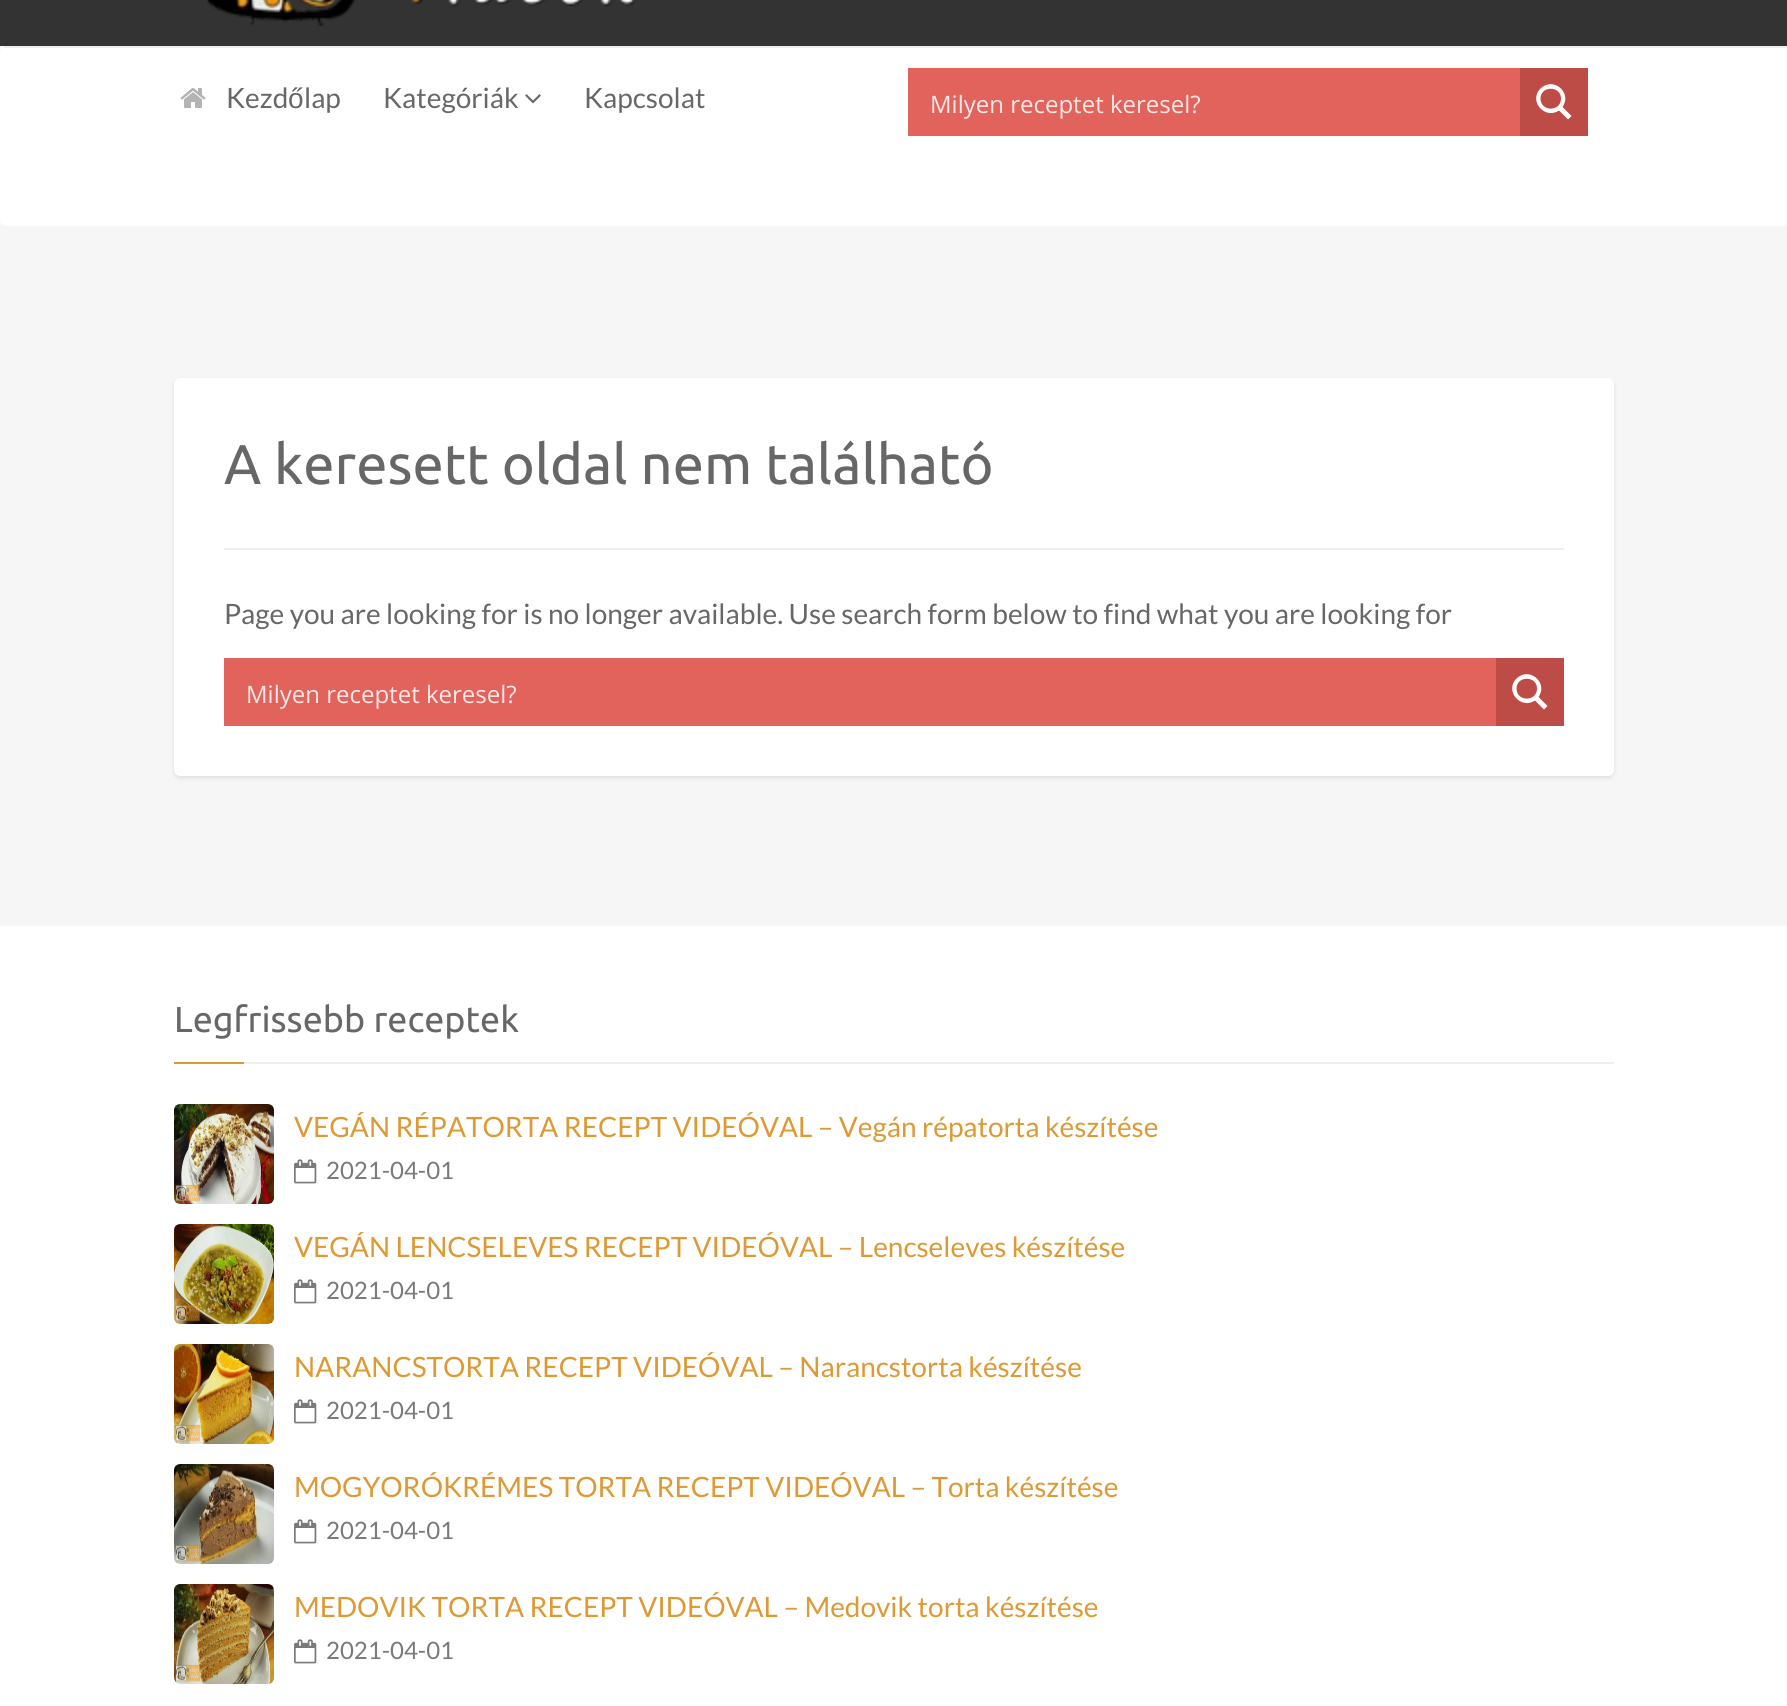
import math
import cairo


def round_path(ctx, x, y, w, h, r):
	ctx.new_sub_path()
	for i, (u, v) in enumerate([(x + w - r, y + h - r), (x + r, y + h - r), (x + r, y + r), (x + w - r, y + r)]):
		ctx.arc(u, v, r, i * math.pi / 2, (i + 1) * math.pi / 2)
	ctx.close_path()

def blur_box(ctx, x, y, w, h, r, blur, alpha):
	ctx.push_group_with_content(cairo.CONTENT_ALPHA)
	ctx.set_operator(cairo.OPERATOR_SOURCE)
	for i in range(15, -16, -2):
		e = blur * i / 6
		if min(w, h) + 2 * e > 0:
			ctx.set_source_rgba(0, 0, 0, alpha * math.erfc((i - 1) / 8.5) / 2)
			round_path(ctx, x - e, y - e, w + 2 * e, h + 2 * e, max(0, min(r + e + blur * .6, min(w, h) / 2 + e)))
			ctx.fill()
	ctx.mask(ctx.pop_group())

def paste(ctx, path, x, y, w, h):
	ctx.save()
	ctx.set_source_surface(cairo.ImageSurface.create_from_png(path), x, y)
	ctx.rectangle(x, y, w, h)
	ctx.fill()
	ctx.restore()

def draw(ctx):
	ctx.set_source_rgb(0.961, 0.961, 0.961)
	ctx.paint()
	ctx.set_source_rgb(0.2, 0.2, 0.2)
	ctx.rectangle(0, 0, 1787, 46)
	ctx.fill()
	paste(ctx, 'media/1.png', 206, 0, 429, 26)
	ctx.set_source_rgb(1, 1, 1)
	round_path(ctx, 0, 46, 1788, 180, 6)
	ctx.fill()
	ctx.set_source_rgb(0.933, 0.933, 0.933)
	ctx.rectangle(4, 46, 1782, 2)
	ctx.fill()
	paste(ctx, 'media/2.png', 180, 88, 26, 20)
	ctx.select_font_face('Lato')
	ctx.set_font_size(28)
	ctx.set_source_rgb(0.404, 0.404, 0.404)
	ctx.move_to(226, 108)
	ctx.show_text('Kezd')
	ctx.select_font_face('Liberation Sans')
	ctx.move_to(288, 108)
	ctx.show_text('ő')
	ctx.select_font_face('Lato')
	ctx.move_to(304, 108)
	ctx.show_text('lap')
	ctx.move_to(383, 108)
	ctx.show_text('Kategóriák')
	paste(ctx, 'media/3.png', 525, 94, 16, 10)
	ctx.move_to(584, 108)
	ctx.show_text('Kapcsolat')
	ctx.set_source_rgb(0.882, 0.388, 0.361)
	ctx.rectangle(908, 68, 612, 68)
	ctx.fill()
	ctx.select_font_face('Open Sans')
	ctx.set_font_size(24)
	ctx.set_source_rgb(0.984, 0.91, 0.906)
	ctx.move_to(930, 113)
	ctx.show_text('Milyen receptet keresel?')
	ctx.set_source_rgb(0.745, 0.298, 0.275)
	ctx.rectangle(1520, 68, 68, 68)
	ctx.fill()
	ctx.set_source_rgb(1, 1, 1)
	ctx.new_path()
	ctx.move_to(1571.5, 116)
	ctx.line_to(1562.5, 107)
	ctx.curve_to(1572.5, 93, 1553.5, 76, 1540.5, 88.5)
	ctx.curve_to(1528, 101, 1545, 120, 1559, 110.5)
	ctx.line_to(1568, 119.5)
	ctx.close_path()
	ctx.move_to(1540.5, 98.5)
	ctx.curve_to(1540.5, 85.5, 1561, 85.5, 1561, 98.5)
	ctx.curve_to(1561, 112, 1540.5, 112, 1540.5, 98.5)
	ctx.close_path()
	ctx.fill()
	ctx.set_source_rgb(0, 0, 0)
	blur_box(ctx, 174, 380, 1440, 398, 6, 2, 0.1)
	ctx.set_source_rgb(1, 1, 1)
	round_path(ctx, 174, 378, 1440, 398, 6)
	ctx.fill()
	ctx.select_font_face('Ubuntu')
	ctx.set_font_size(56)
	ctx.set_source_rgb(0.404, 0.404, 0.404)
	ctx.move_to(224, 484)
	ctx.show_text('A keresett oldal nem található')
	ctx.set_source_rgb(0.933, 0.933, 0.933)
	ctx.rectangle(224, 548, 1340, 2)
	ctx.fill()
	ctx.select_font_face('Lato')
	ctx.set_font_size(28)
	ctx.set_source_rgb(0.404, 0.404, 0.404)
	ctx.move_to(224, 624)
	ctx.show_text('Page you are looking for is no longer available. Use search form below to find what you are looking for')
	ctx.set_source_rgb(0.882, 0.388, 0.361)
	ctx.rectangle(224, 658, 1272, 68)
	ctx.fill()
	ctx.select_font_face('Open Sans')
	ctx.set_font_size(24)
	ctx.set_source_rgb(0.984, 0.91, 0.906)
	ctx.move_to(246, 703)
	ctx.show_text('Milyen receptet keresel?')
	ctx.set_source_rgb(0.745, 0.298, 0.275)
	ctx.rectangle(1496, 658, 68, 68)
	ctx.fill()
	ctx.set_source_rgb(1, 1, 1)
	ctx.new_path()
	ctx.move_to(1547.5, 706)
	ctx.line_to(1538.5, 697)
	ctx.curve_to(1548.5, 683, 1529.5, 666, 1516.5, 678.5)
	ctx.curve_to(1504, 691, 1521, 710, 1535, 700.5)
	ctx.line_to(1544, 709.5)
	ctx.close_path()
	ctx.move_to(1516.5, 688.5)
	ctx.curve_to(1516.5, 675.5, 1537, 675.5, 1537, 688.5)
	ctx.curve_to(1537, 702, 1516.5, 702, 1516.5, 688.5)
	ctx.close_path()
	ctx.fill()
	ctx.rectangle(0, 926, 1787, 780)
	ctx.fill()
	ctx.set_source_rgb(0.933, 0.933, 0.933)
	ctx.rectangle(244, 1062, 1370, 2)
	ctx.fill()
	ctx.select_font_face('Ubuntu')
	ctx.set_font_size(36)
	ctx.set_source_rgb(0.404, 0.404, 0.404)
	ctx.move_to(174, 1032)
	ctx.show_text('Legfrissebb receptek')
	ctx.set_source_rgb(0.867, 0.6, 0.2)
	ctx.rectangle(174, 1062, 70, 2)
	ctx.fill()
	paste(ctx, 'media/4.png', 174, 1104, 100, 100)
	ctx.select_font_face('Lato')
	ctx.set_font_size(28)
	ctx.move_to(294, 1137)
	ctx.show_text('VEGÁN RÉPATORTA RECEPT VIDEÓVAL – Vegán répatorta készítése')
	paste(ctx, 'media/5.png', 294, 1159, 23, 25)
	ctx.set_font_size(24)
	ctx.set_source_rgb(0.478, 0.478, 0.478)
	ctx.move_to(326, 1179)
	ctx.show_text('2021-04-01')
	paste(ctx, 'media/6.png', 174, 1224, 100, 100)
	ctx.set_font_size(28)
	ctx.set_source_rgb(0.867, 0.6, 0.2)
	ctx.move_to(294, 1257)
	ctx.show_text('VEGÁN LENCSELEVES RECEPT VIDEÓVAL – Lencseleves készítése')
	paste(ctx, 'media/5.png', 294, 1279, 23, 25)
	ctx.set_font_size(24)
	ctx.set_source_rgb(0.478, 0.478, 0.478)
	ctx.move_to(326, 1299)
	ctx.show_text('2021-04-01')
	paste(ctx, 'media/7.png', 174, 1344, 100, 100)
	ctx.set_font_size(28)
	ctx.set_source_rgb(0.867, 0.6, 0.2)
	ctx.move_to(294, 1377)
	ctx.show_text('NARANCSTORTA RECEPT VIDEÓVAL – Narancstorta készítése')
	paste(ctx, 'media/5.png', 294, 1399, 23, 25)
	ctx.set_font_size(24)
	ctx.set_source_rgb(0.478, 0.478, 0.478)
	ctx.move_to(326, 1419)
	ctx.show_text('2021-04-01')
	paste(ctx, 'media/8.png', 174, 1464, 100, 100)
	ctx.set_font_size(28)
	ctx.set_source_rgb(0.867, 0.6, 0.2)
	ctx.move_to(294, 1497)
	ctx.show_text('MOGYORÓKRÉMES TORTA RECEPT VIDEÓVAL – Torta készítése')
	paste(ctx, 'media/5.png', 294, 1519, 23, 25)
	ctx.set_font_size(24)
	ctx.set_source_rgb(0.478, 0.478, 0.478)
	ctx.move_to(326, 1539)
	ctx.show_text('2021-04-01')
	paste(ctx, 'media/9.png', 174, 1584, 100, 100)
	ctx.set_font_size(28)
	ctx.set_source_rgb(0.867, 0.6, 0.2)
	ctx.move_to(294, 1617)
	ctx.show_text('MEDOVIK TORTA RECEPT VIDEÓVAL – Medovik torta készítése')
	paste(ctx, 'media/5.png', 294, 1639, 23, 25)
	ctx.set_font_size(24)
	ctx.set_source_rgb(0.478, 0.478, 0.478)
	ctx.move_to(326, 1659)
	ctx.show_text('2021-04-01')


surface = cairo.ImageSurface(cairo.FORMAT_RGB24, 1787, 1706)
ctx = cairo.Context(surface)
options = cairo.FontOptions()
options.set_hint_metrics(cairo.HINT_METRICS_OFF)
options.set_hint_style(cairo.HINT_STYLE_NONE)
ctx.set_font_options(options)
ctx.set_miter_limit(4)
draw(ctx)
surface.write_to_png('image.png')
